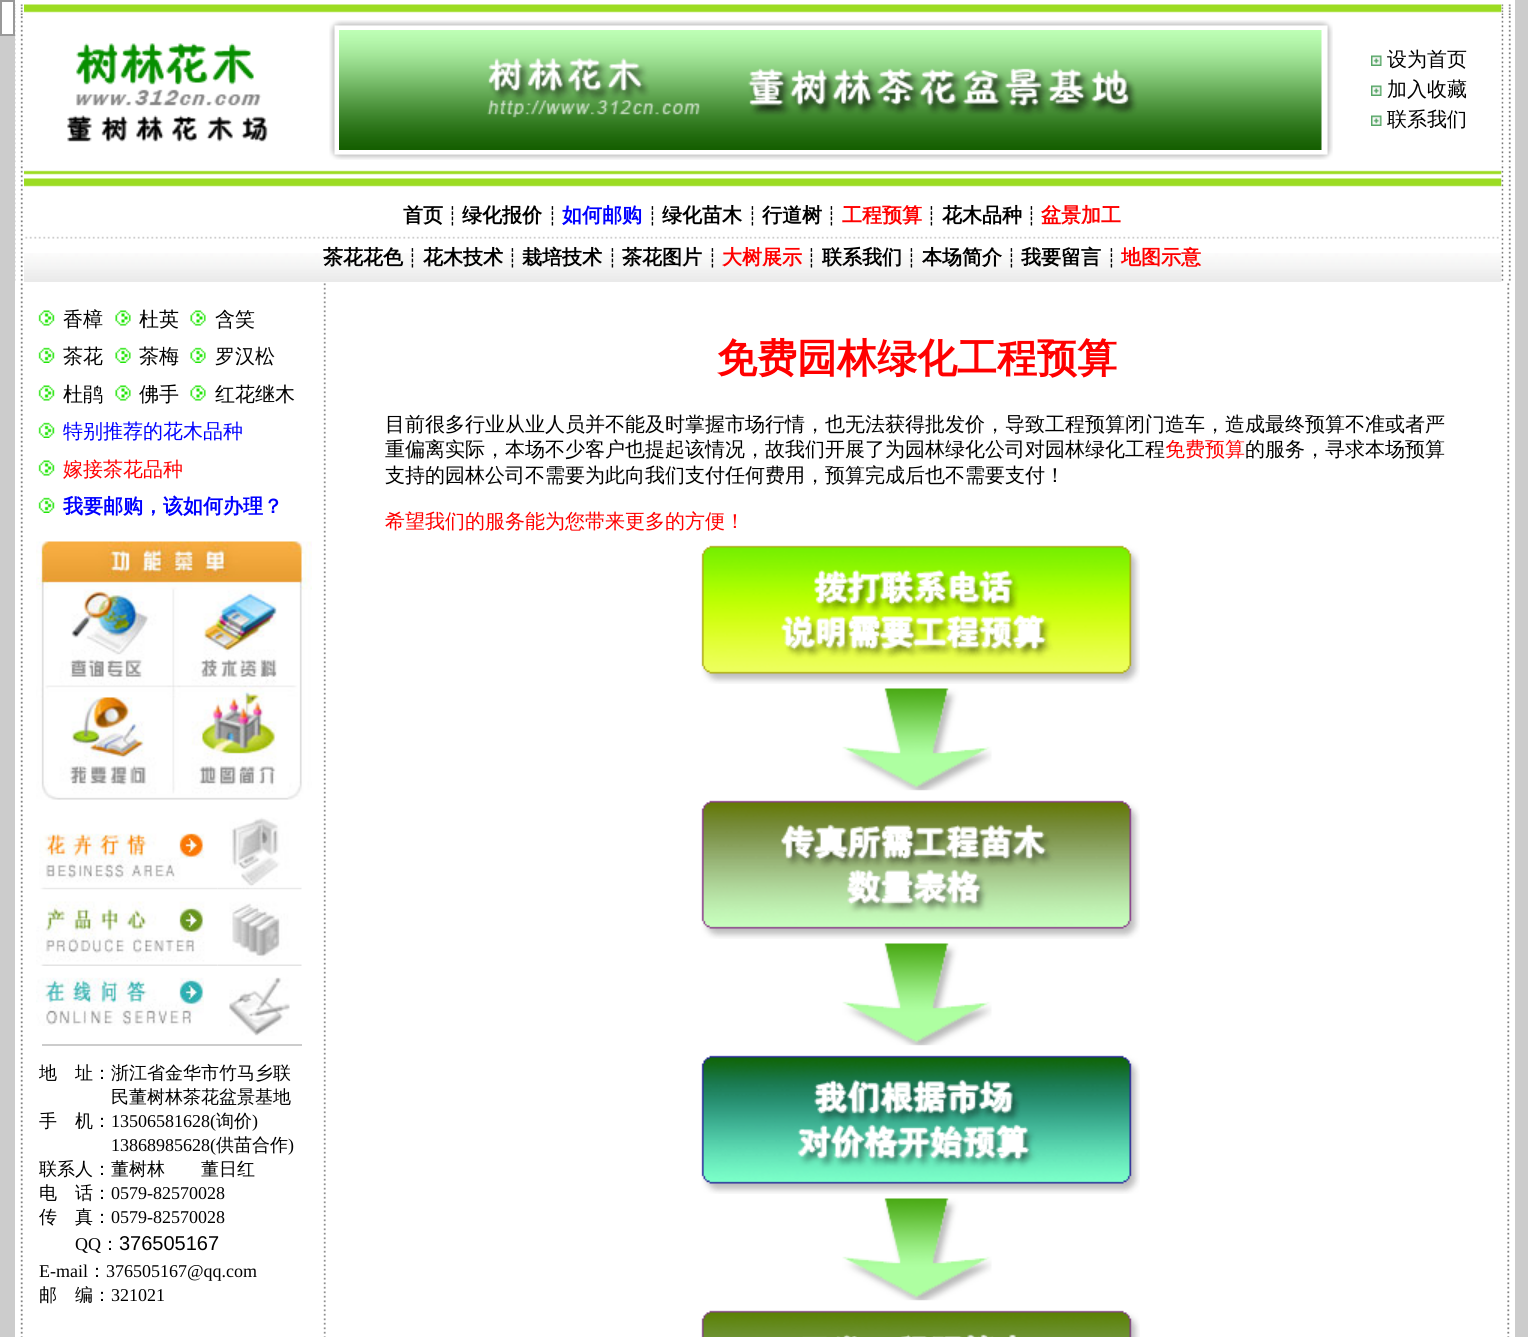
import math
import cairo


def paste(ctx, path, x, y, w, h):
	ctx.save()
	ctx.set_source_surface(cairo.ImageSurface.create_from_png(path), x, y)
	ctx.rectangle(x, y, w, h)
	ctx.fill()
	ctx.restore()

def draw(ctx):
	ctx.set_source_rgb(0.8, 0.8, 0.8)
	ctx.paint()
	ctx.set_source_rgb(1, 1, 1)
	ctx.rectangle(1, 1, 13, 34)
	ctx.fill_preserve()
	ctx.set_source_rgb(0.6, 0.6, 0.6)
	ctx.stroke()
	ctx.set_source_rgb(1, 1, 1)
	ctx.rectangle(15, 0, 1500, 1337)
	ctx.fill()
	paste(ctx, 'media/1.png', 15, 4, 8, 11)
	paste(ctx, 'media/2.png', 24, 4, 1478, 9)
	paste(ctx, 'media/3.png', 1501, 4, 10, 11)
	paste(ctx, 'media/4.png', 15, 16, 8, 149)
	paste(ctx, 'media/5.png', 67, 43, 201, 99)
	paste(ctx, 'media/6.png', 329, 20, 1004, 140)
	paste(ctx, 'media/7.png', 339, 30, 983, 120)
	paste(ctx, 'media/8.png', 1371, 55, 11, 11)
	ctx.select_font_face('WenQuanYi Zen Hei Medium')
	ctx.set_font_size(20)
	ctx.set_source_rgb(0, 0, 0)
	ctx.move_to(1387, 66)
	ctx.show_text('设为首页')
	paste(ctx, 'media/8.png', 1371, 85, 11, 11)
	ctx.move_to(1387, 96)
	ctx.show_text('加入收藏')
	paste(ctx, 'media/8.png', 1371, 115, 11, 11)
	ctx.move_to(1387, 126)
	ctx.show_text('联系我们')
	paste(ctx, 'media/9.png', 1501, 16, 10, 149)
	paste(ctx, 'media/10.png', 15, 166, 8, 25)
	paste(ctx, 'media/11.png', 24, 170, 1478, 17)
	paste(ctx, 'media/12.png', 1501, 166, 10, 25)
	paste(ctx, 'media/13.png', 15, 193, 8, 88)
	paste(ctx, 'media/14.png', 24, 253, 1478, 29)
	ctx.select_font_face('WenQuanYi Zen Hei', cairo.FONT_SLANT_NORMAL, cairo.FONT_WEIGHT_BOLD)
	ctx.move_to(403, 222)
	ctx.show_text('首页')
	ctx.select_font_face('DejaVu Sans')
	ctx.set_font_size(18)
	ctx.move_to(447, 222)
	ctx.show_text('┊')
	ctx.select_font_face('WenQuanYi Zen Hei', cairo.FONT_SLANT_NORMAL, cairo.FONT_WEIGHT_BOLD)
	ctx.set_font_size(20)
	ctx.move_to(462, 222)
	ctx.show_text('绿化报价')
	ctx.select_font_face('DejaVu Sans')
	ctx.set_font_size(18)
	ctx.move_to(547, 222)
	ctx.show_text('┊')
	ctx.select_font_face('WenQuanYi Zen Hei', cairo.FONT_SLANT_NORMAL, cairo.FONT_WEIGHT_BOLD)
	ctx.set_font_size(20)
	ctx.set_source_rgb(0, 0, 1)
	ctx.move_to(562, 222)
	ctx.show_text('如何邮购')
	ctx.select_font_face('DejaVu Sans')
	ctx.set_font_size(18)
	ctx.set_source_rgb(0, 0, 0)
	ctx.move_to(647, 222)
	ctx.show_text('┊')
	ctx.select_font_face('WenQuanYi Zen Hei', cairo.FONT_SLANT_NORMAL, cairo.FONT_WEIGHT_BOLD)
	ctx.set_font_size(20)
	ctx.move_to(662, 222)
	ctx.show_text('绿化苗木')
	ctx.select_font_face('DejaVu Sans')
	ctx.set_font_size(18)
	ctx.move_to(747, 222)
	ctx.show_text('┊')
	ctx.select_font_face('WenQuanYi Zen Hei', cairo.FONT_SLANT_NORMAL, cairo.FONT_WEIGHT_BOLD)
	ctx.set_font_size(20)
	ctx.move_to(762, 222)
	ctx.show_text('行道树')
	ctx.select_font_face('DejaVu Sans')
	ctx.set_font_size(18)
	ctx.move_to(826, 222)
	ctx.show_text('┊')
	ctx.select_font_face('WenQuanYi Zen Hei', cairo.FONT_SLANT_NORMAL, cairo.FONT_WEIGHT_BOLD)
	ctx.set_font_size(20)
	ctx.set_source_rgb(1, 0, 0)
	ctx.move_to(842, 222)
	ctx.show_text('工程预算')
	ctx.select_font_face('DejaVu Sans')
	ctx.set_font_size(18)
	ctx.set_source_rgb(0, 0, 0)
	ctx.move_to(926, 222)
	ctx.show_text('┊')
	ctx.select_font_face('WenQuanYi Zen Hei', cairo.FONT_SLANT_NORMAL, cairo.FONT_WEIGHT_BOLD)
	ctx.set_font_size(20)
	ctx.move_to(942, 222)
	ctx.show_text('花木品种')
	ctx.select_font_face('DejaVu Sans')
	ctx.set_font_size(18)
	ctx.move_to(1026, 222)
	ctx.show_text('┊')
	ctx.select_font_face('WenQuanYi Zen Hei', cairo.FONT_SLANT_NORMAL, cairo.FONT_WEIGHT_BOLD)
	ctx.set_font_size(20)
	ctx.set_source_rgb(1, 0, 0)
	ctx.move_to(1041, 222)
	ctx.show_text('盆景加工')
	paste(ctx, 'media/15.png', 25, 236, 1477, 3)
	ctx.set_source_rgb(0, 0, 0)
	ctx.move_to(323, 264)
	ctx.show_text('茶花花色')
	ctx.select_font_face('DejaVu Sans')
	ctx.set_font_size(18)
	ctx.move_to(407, 264)
	ctx.show_text('┊')
	ctx.select_font_face('WenQuanYi Zen Hei', cairo.FONT_SLANT_NORMAL, cairo.FONT_WEIGHT_BOLD)
	ctx.set_font_size(20)
	ctx.move_to(423, 264)
	ctx.show_text('花木技术')
	ctx.select_font_face('DejaVu Sans')
	ctx.set_font_size(18)
	ctx.move_to(507, 264)
	ctx.show_text('┊')
	ctx.select_font_face('WenQuanYi Zen Hei', cairo.FONT_SLANT_NORMAL, cairo.FONT_WEIGHT_BOLD)
	ctx.set_font_size(20)
	ctx.move_to(522, 264)
	ctx.show_text('栽培技术')
	ctx.select_font_face('DejaVu Sans')
	ctx.set_font_size(18)
	ctx.move_to(607, 264)
	ctx.show_text('┊')
	ctx.select_font_face('WenQuanYi Zen Hei', cairo.FONT_SLANT_NORMAL, cairo.FONT_WEIGHT_BOLD)
	ctx.set_font_size(20)
	ctx.move_to(622, 264)
	ctx.show_text('茶花图片')
	ctx.select_font_face('DejaVu Sans')
	ctx.set_font_size(18)
	ctx.move_to(707, 264)
	ctx.show_text('┊')
	ctx.select_font_face('WenQuanYi Zen Hei', cairo.FONT_SLANT_NORMAL, cairo.FONT_WEIGHT_BOLD)
	ctx.set_font_size(20)
	ctx.set_source_rgb(1, 0, 0)
	ctx.move_to(722, 264)
	ctx.show_text('大树展示')
	ctx.select_font_face('DejaVu Sans')
	ctx.set_font_size(18)
	ctx.set_source_rgb(0, 0, 0)
	ctx.move_to(806, 264)
	ctx.show_text('┊')
	ctx.select_font_face('WenQuanYi Zen Hei', cairo.FONT_SLANT_NORMAL, cairo.FONT_WEIGHT_BOLD)
	ctx.set_font_size(20)
	ctx.move_to(822, 264)
	ctx.show_text('联系我们')
	ctx.select_font_face('DejaVu Sans')
	ctx.set_font_size(18)
	ctx.move_to(906, 264)
	ctx.show_text('┊')
	ctx.select_font_face('WenQuanYi Zen Hei', cairo.FONT_SLANT_NORMAL, cairo.FONT_WEIGHT_BOLD)
	ctx.set_font_size(20)
	ctx.move_to(922, 264)
	ctx.show_text('本场简介')
	ctx.select_font_face('DejaVu Sans')
	ctx.set_font_size(18)
	ctx.move_to(1006, 264)
	ctx.show_text('┊')
	ctx.select_font_face('WenQuanYi Zen Hei', cairo.FONT_SLANT_NORMAL, cairo.FONT_WEIGHT_BOLD)
	ctx.set_font_size(20)
	ctx.move_to(1021, 264)
	ctx.show_text('我要留言')
	ctx.select_font_face('DejaVu Sans')
	ctx.set_font_size(18)
	ctx.move_to(1106, 264)
	ctx.show_text('┊')
	ctx.select_font_face('WenQuanYi Zen Hei', cairo.FONT_SLANT_NORMAL, cairo.FONT_WEIGHT_BOLD)
	ctx.set_font_size(20)
	ctx.set_source_rgb(1, 0, 0)
	ctx.move_to(1121, 264)
	ctx.show_text('地图示意')
	paste(ctx, 'media/16.png', 1501, 193, 10, 89)
	paste(ctx, 'media/17.png', 20, 283, 3, 1054)
	paste(ctx, 'media/18.png', 38, 310, 17, 16)
	ctx.select_font_face('WenQuanYi Zen Hei Medium')
	ctx.set_source_rgb(0, 0, 0)
	ctx.move_to(63, 326)
	ctx.show_text('香樟')
	paste(ctx, 'media/19.png', 115, 310, 16, 16)
	ctx.move_to(139, 326)
	ctx.show_text('杜英')
	paste(ctx, 'media/19.png', 190, 310, 16, 16)
	ctx.move_to(215, 326)
	ctx.show_text('含笑')
	paste(ctx, 'media/20.png', 38, 347, 17, 16)
	ctx.move_to(63, 363)
	ctx.show_text('茶花')
	paste(ctx, 'media/21.png', 115, 347, 16, 16)
	ctx.move_to(139, 363)
	ctx.show_text('茶梅')
	paste(ctx, 'media/21.png', 190, 347, 16, 16)
	ctx.move_to(215, 363)
	ctx.show_text('罗汉松')
	paste(ctx, 'media/18.png', 38, 385, 17, 16)
	ctx.move_to(63, 401)
	ctx.show_text('杜鹃')
	paste(ctx, 'media/19.png', 115, 385, 16, 16)
	ctx.move_to(139, 401)
	ctx.show_text('佛手')
	paste(ctx, 'media/19.png', 190, 385, 16, 16)
	ctx.move_to(215, 401)
	ctx.show_text('红花继木')
	paste(ctx, 'media/20.png', 38, 422, 17, 16)
	ctx.set_source_rgb(0, 0, 1)
	ctx.move_to(63, 438)
	ctx.show_text('特别推荐的花木品种')
	paste(ctx, 'media/18.png', 38, 460, 17, 16)
	ctx.set_source_rgb(1, 0, 0)
	ctx.move_to(63, 476)
	ctx.show_text('嫁接茶花品种')
	paste(ctx, 'media/20.png', 38, 497, 17, 16)
	ctx.select_font_face('WenQuanYi Zen Hei', cairo.FONT_SLANT_NORMAL, cairo.FONT_WEIGHT_BOLD)
	ctx.set_source_rgb(0, 0, 1)
	ctx.move_to(63, 513)
	ctx.show_text('我要邮购，该如何办理？')
	paste(ctx, 'media/22.png', 36, 541, 276, 259)
	paste(ctx, 'media/23.png', 39, 833, 179, 57)
	paste(ctx, 'media/24.png', 217, 817, 85, 73)
	paste(ctx, 'media/25.png', 36, 889, 182, 77)
	paste(ctx, 'media/26.png', 217, 889, 85, 77)
	paste(ctx, 'media/27.png', 36, 977, 168, 49)
	paste(ctx, 'media/28.png', 229, 977, 61, 59)
	ctx.set_source_rgb(0.8, 0.8, 0.8)
	ctx.rectangle(42, 1044, 260, 2)
	ctx.fill()
	ctx.select_font_face('WenQuanYi Zen Hei Medium')
	ctx.set_font_size(18)
	ctx.set_source_rgb(0, 0, 0)
	for x, y, s in [
		(39, 1079, '地　址：浙江省金华市竹马乡联'),
		(111, 1103, '民董树林茶花盆景基地'),
		(39, 1127, '手　机：'),
	]:
		ctx.move_to(x, y)
		ctx.show_text(s)
	ctx.select_font_face('Liberation Serif')
	ctx.move_to(111, 1127)
	ctx.show_text('13506581628(')
	ctx.select_font_face('WenQuanYi Zen Hei Medium')
	ctx.move_to(216, 1127)
	ctx.show_text('询价')
	ctx.select_font_face('Liberation Serif')
	ctx.move_to(252, 1127)
	ctx.show_text(')')
	ctx.move_to(111, 1151)
	ctx.show_text('13868985628(')
	ctx.select_font_face('WenQuanYi Zen Hei Medium')
	ctx.move_to(216, 1151)
	ctx.show_text('供苗合作')
	ctx.select_font_face('Liberation Serif')
	ctx.move_to(288, 1151)
	ctx.show_text(')')
	ctx.select_font_face('WenQuanYi Zen Hei Medium')
	ctx.move_to(39, 1175)
	ctx.show_text('联系人：董树林　　董日红')
	ctx.move_to(39, 1199)
	ctx.show_text('电　话：')
	ctx.select_font_face('Liberation Serif')
	ctx.move_to(111, 1199)
	ctx.show_text('0579-82570028')
	ctx.select_font_face('WenQuanYi Zen Hei Medium')
	ctx.move_to(39, 1223)
	ctx.show_text('传　真：')
	ctx.select_font_face('Liberation Serif')
	ctx.move_to(111, 1223)
	ctx.show_text('0579-82570028')
	ctx.move_to(75, 1250)
	ctx.show_text('QQ')
	ctx.select_font_face('WenQuanYi Zen Hei Medium')
	ctx.move_to(101, 1250)
	ctx.show_text('：')
	ctx.select_font_face('Liberation Sans')
	ctx.set_font_size(20)
	ctx.move_to(119, 1250)
	ctx.show_text('376505167')
	ctx.select_font_face('Liberation Serif')
	ctx.set_font_size(18)
	ctx.move_to(39, 1277)
	ctx.show_text('E-mail')
	ctx.select_font_face('WenQuanYi Zen Hei Medium')
	ctx.move_to(88, 1277)
	ctx.show_text('：')
	ctx.select_font_face('Liberation Serif')
	ctx.move_to(106, 1277)
	ctx.show_text('376505167@qq.com')
	ctx.select_font_face('WenQuanYi Zen Hei Medium')
	ctx.move_to(39, 1301)
	ctx.show_text('邮　编：')
	ctx.select_font_face('Liberation Serif')
	ctx.move_to(111, 1301)
	ctx.show_text('321021')
	paste(ctx, 'media/29.png', 323, 283, 3, 1054)
	ctx.select_font_face('WenQuanYi Zen Hei', cairo.FONT_SLANT_NORMAL, cairo.FONT_WEIGHT_BOLD)
	ctx.set_font_size(40)
	ctx.set_source_rgb(1, 0, 0)
	ctx.move_to(717, 372)
	ctx.show_text('免费园林绿化工程预算')
	ctx.select_font_face('WenQuanYi Zen Hei Medium')
	ctx.set_font_size(20)
	ctx.set_source_rgb(0, 0, 0)
	ctx.move_to(385, 431)
	ctx.show_text('目前很多行业从业人员并不能及时掌握市场行情，也无法获得批发价，导致工程预算闭门造车，造成最终预算不准或者严')
	ctx.move_to(385, 456)
	ctx.show_text('重偏离实际，本场不少客户也提起该情况，故我们开展了为园林绿化公司对园林绿化工程')
	ctx.set_source_rgb(1, 0, 0)
	ctx.move_to(1165, 456)
	ctx.show_text('免费预算')
	ctx.set_source_rgb(0, 0, 0)
	ctx.move_to(1245, 456)
	ctx.show_text('的服务，寻求本场预算')
	ctx.move_to(385, 482)
	ctx.show_text('支持的园林公司不需要为此向我们支付任何费用，预算完成后也不需要支付！')
	ctx.set_source_rgb(1, 0, 0)
	ctx.move_to(385, 528)
	ctx.show_text('希望我们的服务能为您带来更多的方便！')
	paste(ctx, 'media/30.png', 701, 545, 439, 139)
	paste(ctx, 'media/31.png', 842, 688, 150, 103)
	paste(ctx, 'media/32.png', 701, 790, 439, 149)
	paste(ctx, 'media/31.png', 842, 943, 150, 103)
	paste(ctx, 'media/33.png', 701, 1045, 439, 149)
	paste(ctx, 'media/31.png', 842, 1198, 150, 103)
	paste(ctx, 'media/34.png', 701, 1300, 439, 37)
	paste(ctx, 'media/35.png', 1507, 283, 3, 1054)


surface = cairo.ImageSurface(cairo.FORMAT_RGB24, 1528, 1337)
ctx = cairo.Context(surface)
options = cairo.FontOptions()
options.set_hint_metrics(cairo.HINT_METRICS_OFF)
options.set_hint_style(cairo.HINT_STYLE_NONE)
ctx.set_font_options(options)
ctx.set_miter_limit(4)
draw(ctx)
surface.write_to_png('image.png')
